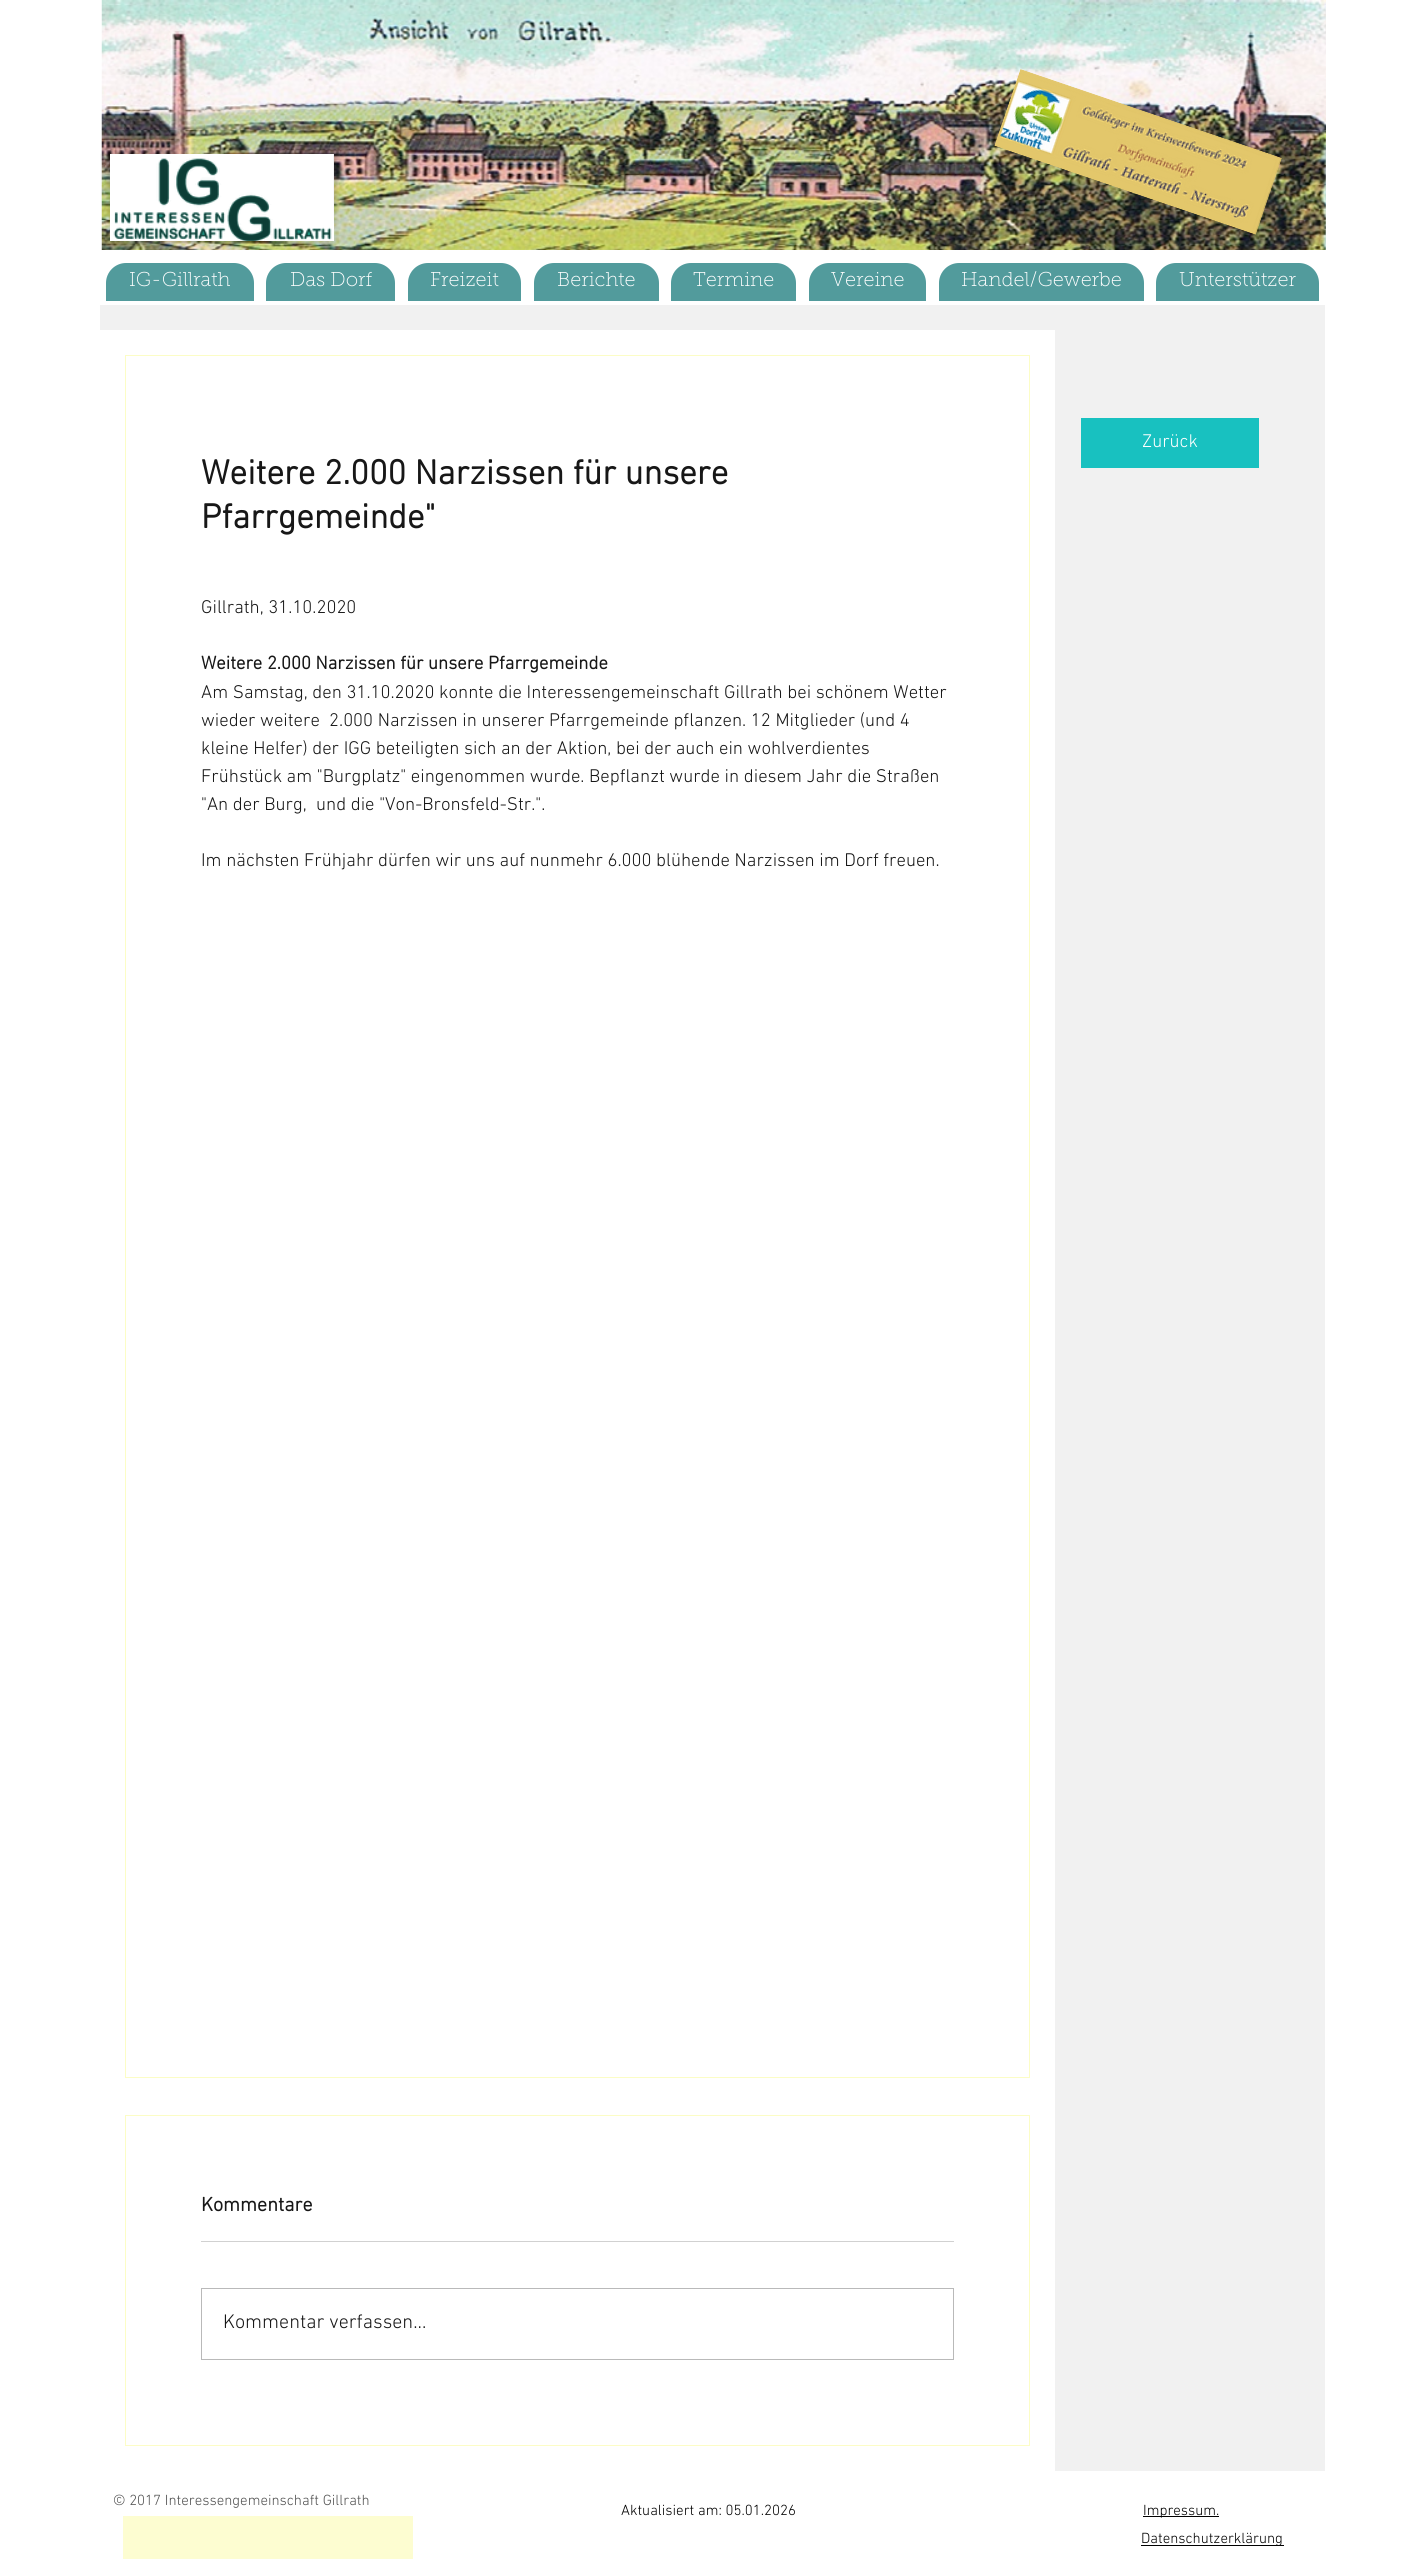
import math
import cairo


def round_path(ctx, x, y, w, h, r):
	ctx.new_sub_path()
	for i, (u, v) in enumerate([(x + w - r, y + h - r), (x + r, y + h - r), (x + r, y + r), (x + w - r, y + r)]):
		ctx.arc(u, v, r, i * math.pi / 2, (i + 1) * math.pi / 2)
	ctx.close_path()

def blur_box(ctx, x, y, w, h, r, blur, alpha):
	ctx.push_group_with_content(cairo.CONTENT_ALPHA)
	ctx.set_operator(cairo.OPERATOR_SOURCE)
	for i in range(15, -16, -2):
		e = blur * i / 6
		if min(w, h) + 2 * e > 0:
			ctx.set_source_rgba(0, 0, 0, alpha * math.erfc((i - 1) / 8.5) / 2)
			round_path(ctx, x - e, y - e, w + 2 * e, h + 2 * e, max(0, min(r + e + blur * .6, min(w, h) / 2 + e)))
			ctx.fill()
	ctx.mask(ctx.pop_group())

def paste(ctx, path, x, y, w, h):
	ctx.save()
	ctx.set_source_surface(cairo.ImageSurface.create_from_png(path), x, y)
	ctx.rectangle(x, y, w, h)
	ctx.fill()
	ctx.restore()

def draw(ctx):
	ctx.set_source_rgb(1, 1, 1)
	ctx.paint()
	paste(ctx, 'media/1.png', 101, 0, 1225, 250)
	ctx.set_source_rgb(0, 0, 0)
	blur_box(ctx, 110, 154, 224, 87, 0, 3, 0.1)
	ctx.set_source_rgb(1, 1, 1)
	ctx.rectangle(110, 154, 224, 87)
	ctx.fill()
	paste(ctx, 'media/2.png', 113, 158, 219, 84)
	paste(ctx, 'media/3.png', 116, 241, 217, 3)
	paste(ctx, 'media/4.png', 100, 153, 10, 71)
	paste(ctx, 'media/5.png', 333, 153, 11, 71)
	paste(ctx, 'media/6.png', 994, 69, 288, 166)
	ctx.set_source_rgb(0.322, 0.608, 0.612)
	ctx.new_path()
	ctx.move_to(126, 263)
	ctx.line_to(234, 263)
	ctx.curve_to(245, 263, 254, 272, 254, 283)
	ctx.line_to(254, 301)
	ctx.line_to(106, 301)
	ctx.line_to(106, 283)
	ctx.curve_to(106, 272, 115, 263, 126, 263)
	ctx.close_path()
	ctx.fill()
	ctx.select_font_face('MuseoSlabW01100 Thin')
	ctx.set_font_size(20)
	ctx.set_source_rgb(1, 1, 1)
	ctx.move_to(129, 286)
	ctx.show_text('IG-Gillrath')
	ctx.set_source_rgb(0.322, 0.608, 0.612)
	ctx.new_path()
	ctx.move_to(286, 263)
	ctx.line_to(375, 263)
	ctx.curve_to(386, 263, 395, 272, 395, 283)
	ctx.line_to(395, 301)
	ctx.line_to(266, 301)
	ctx.line_to(266, 283)
	ctx.curve_to(266, 272, 275, 263, 286, 263)
	ctx.close_path()
	ctx.fill()
	ctx.set_source_rgb(1, 1, 1)
	ctx.move_to(290, 286)
	ctx.show_text('Das Dorf')
	ctx.set_source_rgb(0.322, 0.608, 0.612)
	ctx.new_path()
	ctx.move_to(428, 263)
	ctx.line_to(501, 263)
	ctx.curve_to(512, 263, 521, 272, 521, 283)
	ctx.line_to(521, 301)
	ctx.line_to(408, 301)
	ctx.line_to(408, 283)
	ctx.curve_to(408, 272, 417, 263, 428, 263)
	ctx.close_path()
	ctx.fill()
	ctx.set_source_rgb(1, 1, 1)
	ctx.move_to(430, 286)
	ctx.show_text('Freizeit')
	ctx.set_source_rgb(0.322, 0.608, 0.612)
	ctx.new_path()
	ctx.move_to(554, 263)
	ctx.line_to(639, 263)
	ctx.curve_to(650, 263, 659, 272, 659, 283)
	ctx.line_to(659, 301)
	ctx.line_to(534, 301)
	ctx.line_to(534, 283)
	ctx.curve_to(534, 272, 543, 263, 554, 263)
	ctx.close_path()
	ctx.fill()
	ctx.set_source_rgb(1, 1, 1)
	ctx.move_to(557, 286)
	ctx.show_text('Berichte')
	ctx.set_source_rgb(0.322, 0.608, 0.612)
	ctx.new_path()
	ctx.move_to(691, 263)
	ctx.line_to(776, 263)
	ctx.curve_to(787, 263, 796, 272, 796, 283)
	ctx.line_to(796, 301)
	ctx.line_to(671, 301)
	ctx.line_to(671, 283)
	ctx.curve_to(671, 272, 680, 263, 691, 263)
	ctx.close_path()
	ctx.fill()
	ctx.set_source_rgb(1, 1, 1)
	ctx.move_to(693, 286)
	ctx.show_text('Termine')
	ctx.set_source_rgb(0.322, 0.608, 0.612)
	ctx.new_path()
	ctx.move_to(829, 263)
	ctx.line_to(906, 263)
	ctx.curve_to(917, 263, 926, 272, 926, 283)
	ctx.line_to(926, 301)
	ctx.line_to(809, 301)
	ctx.line_to(809, 283)
	ctx.curve_to(809, 272, 818, 263, 829, 263)
	ctx.close_path()
	ctx.fill()
	ctx.set_source_rgb(1, 1, 1)
	ctx.move_to(831, 286)
	ctx.show_text('Vereine')
	ctx.set_source_rgb(0.322, 0.608, 0.612)
	ctx.new_path()
	ctx.move_to(959, 263)
	ctx.line_to(1124, 263)
	ctx.curve_to(1135, 263, 1144, 272, 1144, 283)
	ctx.line_to(1144, 301)
	ctx.line_to(939, 301)
	ctx.line_to(939, 283)
	ctx.curve_to(939, 272, 948, 263, 959, 263)
	ctx.close_path()
	ctx.fill()
	ctx.set_source_rgb(1, 1, 1)
	ctx.move_to(961, 286)
	ctx.show_text('Handel/Gewerbe')
	ctx.set_source_rgb(0.322, 0.608, 0.612)
	ctx.new_path()
	ctx.move_to(1176, 263)
	ctx.line_to(1299, 263)
	ctx.curve_to(1310, 263, 1319, 272, 1319, 283)
	ctx.line_to(1319, 301)
	ctx.line_to(1156, 301)
	ctx.line_to(1156, 283)
	ctx.curve_to(1156, 272, 1165, 263, 1176, 263)
	ctx.close_path()
	ctx.fill()
	ctx.set_source_rgb(1, 1, 1)
	ctx.move_to(1179, 286)
	ctx.show_text('Unterstützer')
	ctx.set_source_rgb(0.945, 0.945, 0.945)
	ctx.rectangle(100, 305, 1225, 2166)
	ctx.fill()
	ctx.set_source_rgb(0.094, 0.757, 0.753)
	ctx.rectangle(1081, 418, 178, 50)
	ctx.fill()
	ctx.select_font_face('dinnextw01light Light')
	ctx.set_font_size(18.75)
	ctx.set_source_rgb(1, 1, 1)
	ctx.move_to(1142, 447)
	ctx.show_text('Zurück')
	ctx.rectangle(100, 330, 955, 2141)
	ctx.fill()
	ctx.rectangle(125.5, 355.5, 904, 1722)
	ctx.set_source_rgb(0.988, 0.992, 0.776)
	ctx.set_line_width(1)
	ctx.stroke()
	ctx.select_font_face('dinnextw01light', cairo.FONT_SLANT_NORMAL, cairo.FONT_WEIGHT_BOLD)
	ctx.set_font_size(35)
	ctx.set_source_rgb(0.09, 0.09, 0.09)
	ctx.move_to(201, 484)
	ctx.show_text('Weitere 2.000 Narzissen für unsere')
	ctx.move_to(201, 528)
	ctx.show_text('Pfarrgemeinde"')
	ctx.select_font_face('dinnextw01light Light')
	ctx.set_font_size(18.75)
	ctx.move_to(201, 613)
	ctx.show_text('Gillrath, 31.10.2020')
	ctx.select_font_face('dinnextw01light', cairo.FONT_SLANT_NORMAL, cairo.FONT_WEIGHT_BOLD)
	ctx.move_to(201, 669)
	ctx.show_text('Weitere 2.000 Narzissen für unsere Pfarrgemeinde')
	ctx.select_font_face('dinnextw01light Light')
	for x, y, s in [
		(201, 698, 'Am Samstag, den 31.10.2020 konnte die Interessengemeinschaft Gillrath bei schönem Wetter'),
		(201, 726, 'wieder weitere  2.000 Narzissen in unserer Pfarrgemeinde pflanzen. 12 Mitglieder (und 4'),
		(201, 754, 'kleine Helfer) der IGG beteiligten sich an der Aktion, bei der auch ein wohlverdientes'),
		(201, 782, 'Frühstück am "Burgplatz" eingenommen wurde. Bepflanzt wurde in diesem Jahr die Straßen'),
		(201, 810, '"An der Burg,  und die "Von-Bronsfeld-Str.".'),
		(201, 866, 'Im nächsten Frühjahr dürfen wir uns auf nunmehr 6.000 blühende Narzissen im Dorf freuen.'),
	]:
		ctx.move_to(x, y)
		ctx.show_text(s)
	ctx.rectangle(125.5, 2115.5, 904, 330)
	ctx.set_source_rgb(0.988, 0.992, 0.776)
	ctx.stroke()
	ctx.select_font_face('dinnextw01light', cairo.FONT_SLANT_NORMAL, cairo.FONT_WEIGHT_BOLD)
	ctx.set_font_size(20)
	ctx.set_source_rgb(0.09, 0.09, 0.09)
	ctx.move_to(201, 2211)
	ctx.show_text('Kommentare')
	ctx.set_source_rgb(0.82, 0.82, 0.82)
	ctx.rectangle(201, 2241, 753, 1)
	ctx.fill()
	ctx.rectangle(201.5, 2288.5, 752, 71)
	ctx.set_source_rgb(0.725, 0.725, 0.725)
	ctx.stroke()
	ctx.select_font_face('dinnextw01light Light')
	ctx.set_source_rgb(0.09, 0.09, 0.09)
	ctx.move_to(223, 2328)
	ctx.show_text('Kommentar verfassen...')
	ctx.set_font_size(15)
	ctx.set_source_rgb(0.318, 0.318, 0.318)
	ctx.move_to(113, 2505)
	ctx.show_text('© 2017 Interessengemeinschaft Gillrath')
	ctx.set_source_rgb(0, 0, 0)
	ctx.move_to(621, 2515)
	ctx.show_text('Aktualisiert am: 05.01.2026')
	ctx.rectangle(1143, 2516, 76, 1)
	ctx.fill()
	ctx.move_to(1143, 2515)
	ctx.show_text('Impressum.')
	ctx.set_source_rgb(0.992, 0.992, 0.82)
	ctx.rectangle(123, 2516, 290, 43)
	ctx.fill()
	ctx.set_source_rgb(0, 0, 0)
	ctx.rectangle(1141, 2545, 143, 1)
	ctx.fill()
	ctx.move_to(1141, 2543)
	ctx.show_text('Datenschutzerklärung')


surface = cairo.ImageSurface(cairo.FORMAT_RGB24, 1425, 2559)
ctx = cairo.Context(surface)
options = cairo.FontOptions()
options.set_hint_metrics(cairo.HINT_METRICS_OFF)
options.set_hint_style(cairo.HINT_STYLE_NONE)
ctx.set_font_options(options)
ctx.set_miter_limit(4)
draw(ctx)
surface.write_to_png('image.png')
